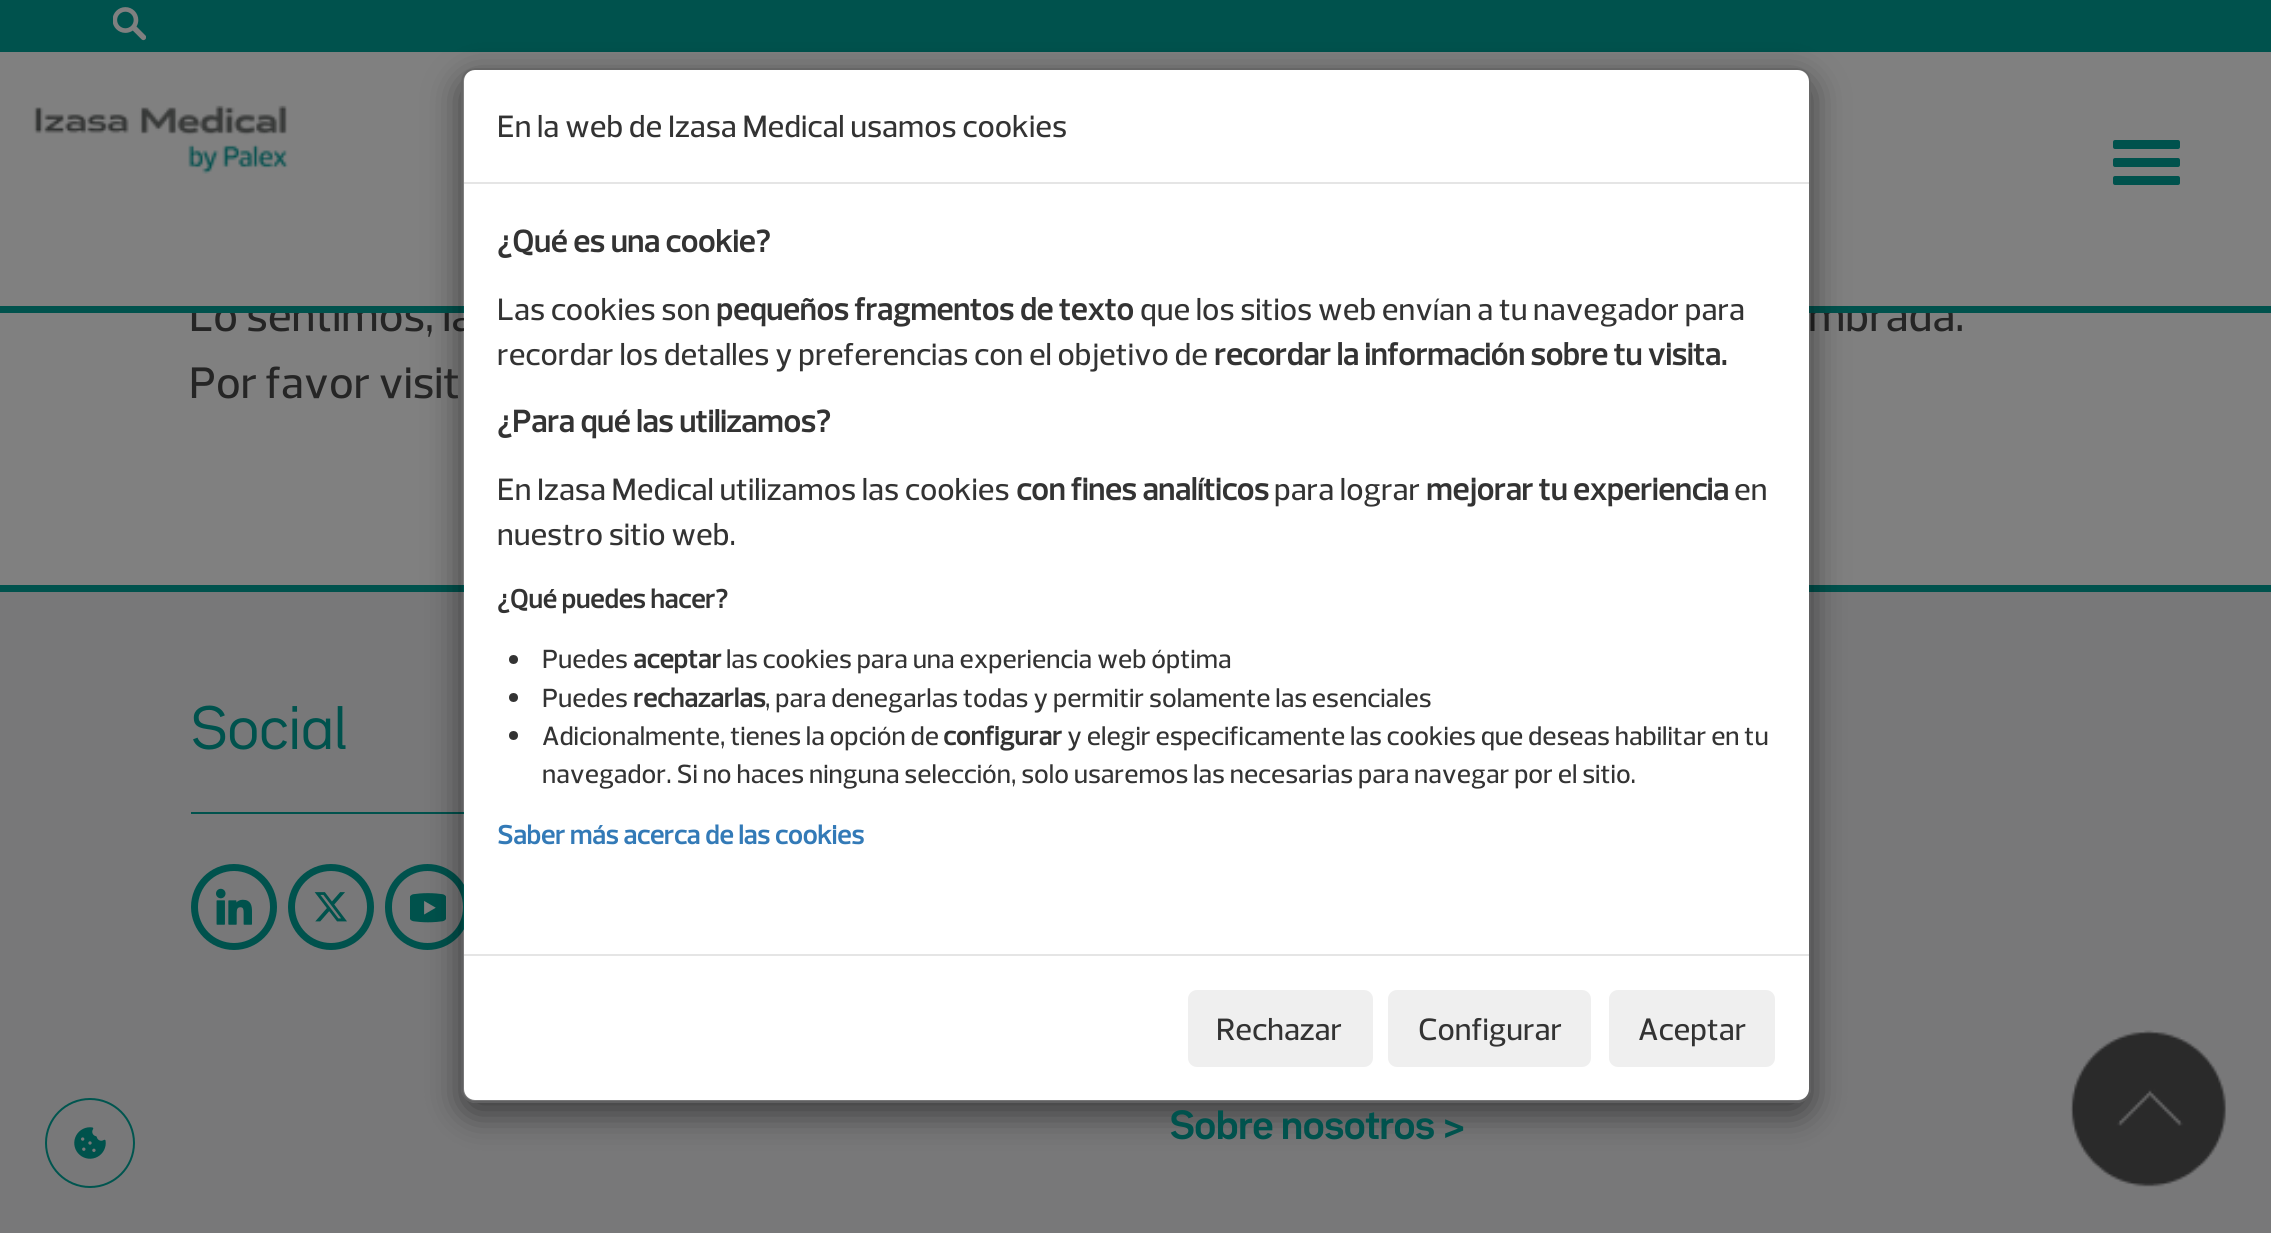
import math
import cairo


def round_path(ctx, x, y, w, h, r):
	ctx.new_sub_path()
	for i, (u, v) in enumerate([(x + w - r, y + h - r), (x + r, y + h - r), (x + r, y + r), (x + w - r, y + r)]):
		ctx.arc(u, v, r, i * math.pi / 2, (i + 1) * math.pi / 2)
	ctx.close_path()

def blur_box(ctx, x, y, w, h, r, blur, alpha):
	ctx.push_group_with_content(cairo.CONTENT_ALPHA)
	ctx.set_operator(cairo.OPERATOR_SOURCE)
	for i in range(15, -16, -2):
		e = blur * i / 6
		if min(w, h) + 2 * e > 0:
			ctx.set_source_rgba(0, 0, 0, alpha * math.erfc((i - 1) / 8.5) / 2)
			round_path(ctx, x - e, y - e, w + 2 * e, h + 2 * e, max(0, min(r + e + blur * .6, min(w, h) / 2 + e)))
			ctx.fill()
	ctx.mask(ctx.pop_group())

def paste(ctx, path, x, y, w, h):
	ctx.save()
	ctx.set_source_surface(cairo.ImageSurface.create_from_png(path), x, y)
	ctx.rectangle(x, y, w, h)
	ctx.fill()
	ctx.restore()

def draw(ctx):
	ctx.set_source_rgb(0.502, 0.502, 0.502)
	ctx.paint()
	ctx.set_source_rgb(0, 0.322, 0.302)
	ctx.rectangle(0, 0, 2271, 52)
	ctx.fill()
	ctx.select_font_face('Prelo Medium')
	ctx.set_font_size(45)
	ctx.set_source_rgb(0.145, 0.145, 0.145)
	ctx.move_to(189, 331)
	ctx.show_text('Lo sentimos, la')
	ctx.move_to(1808, 331)
	ctx.show_text('mbrada.')
	ctx.set_source_rgb(0.502, 0.502, 0.502)
	ctx.rectangle(191, 299, 1740, 7)
	ctx.fill()
	ctx.set_source_rgb(0, 0.322, 0.302)
	ctx.rectangle(0, 306, 2271, 7)
	ctx.fill()
	ctx.set_source_rgb(0.471, 0.471, 0.475)
	ctx.rectangle(0, 592, 2271, 641)
	ctx.fill()
	ctx.set_source_rgb(0, 0.322, 0.302)
	ctx.rectangle(0, 585, 2271, 7)
	ctx.rectangle(191, 812, 273, 2)
	ctx.fill()
	round_path(ctx, 388.5, 867.5, 78, 79, 39)
	ctx.set_line_width(7)
	ctx.stroke()
	paste(ctx, 'media/6.png', 410, 893, 36, 30)
	ctx.save()
	ctx.set_fill_rule(cairo.FILL_RULE_EVEN_ODD)
	ctx.new_path()
	ctx.move_to(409, 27)
	ctx.line_to(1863, 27)
	ctx.line_to(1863, 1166)
	ctx.line_to(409, 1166)
	ctx.close_path()
	ctx.move_to(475, 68)
	ctx.line_to(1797, 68)
	ctx.curve_to(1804.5, 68, 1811, 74.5, 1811, 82)
	ctx.line_to(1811, 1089)
	ctx.curve_to(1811, 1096.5, 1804.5, 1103, 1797, 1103)
	ctx.line_to(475, 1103)
	ctx.curve_to(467.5, 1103, 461, 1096.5, 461, 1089)
	ctx.line_to(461, 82)
	ctx.curve_to(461, 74.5, 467.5, 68, 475, 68)
	ctx.close_path()
	ctx.clip()
	ctx.set_source_rgb(0, 0, 0)
	blur_box(ctx, 461, 79, 1350, 1035, 14, 17, 0.5)
	ctx.restore()
	ctx.set_source_rgb(1, 1, 1)
	round_path(ctx, 464, 70, 1345, 1030, 11)
	ctx.fill()
	round_path(ctx, 462, 69, 1348, 1033, 13)
	ctx.set_source_rgba(0, 0, 0, 0.2)
	ctx.set_line_width(2)
	ctx.stroke()
	ctx.set_source_rgb(0.898, 0.898, 0.898)
	ctx.rectangle(464, 182, 1345, 2)
	ctx.fill()
	ctx.set_font_size(31.5)
	ctx.set_source_rgb(0.2, 0.2, 0.2)
	ctx.move_to(497, 137)
	ctx.show_text('En la web de Izasa Medical usamos cookies')
	ctx.select_font_face('Prelo', cairo.FONT_SLANT_NORMAL, cairo.FONT_WEIGHT_BOLD)
	ctx.move_to(497, 252)
	ctx.show_text('¿Qué es una cookie?')
	ctx.select_font_face('Prelo Medium')
	ctx.move_to(497, 320)
	ctx.show_text('Las cookies son')
	ctx.select_font_face('Prelo', cairo.FONT_SLANT_NORMAL, cairo.FONT_WEIGHT_BOLD)
	ctx.move_to(716, 320)
	ctx.show_text('pequeños fragmentos de texto')
	ctx.select_font_face('Prelo Medium')
	ctx.move_to(1140, 320)
	ctx.show_text('que los sitios web envían a tu navegador para')
	ctx.move_to(497, 365)
	ctx.show_text('recordar los detalles y preferencias con el objetivo de')
	ctx.select_font_face('Prelo', cairo.FONT_SLANT_NORMAL, cairo.FONT_WEIGHT_BOLD)
	ctx.move_to(1214, 365)
	ctx.show_text('recordar la información sobre tu visita.')
	ctx.move_to(497, 432)
	ctx.show_text('¿Para qué las utilizamos?')
	ctx.select_font_face('Prelo Medium')
	ctx.move_to(497, 500)
	ctx.show_text('En Izasa Medical utilizamos las cookies')
	ctx.select_font_face('Prelo', cairo.FONT_SLANT_NORMAL, cairo.FONT_WEIGHT_BOLD)
	ctx.move_to(1016, 500)
	ctx.show_text('con fines analíticos')
	ctx.select_font_face('Prelo Medium')
	ctx.move_to(1274, 500)
	ctx.show_text('para lograr')
	ctx.select_font_face('Prelo', cairo.FONT_SLANT_NORMAL, cairo.FONT_WEIGHT_BOLD)
	ctx.move_to(1426, 500)
	ctx.show_text('mejorar tu experiencia')
	ctx.select_font_face('Prelo Medium')
	ctx.move_to(1734, 500)
	ctx.show_text('en')
	ctx.move_to(497, 545)
	ctx.show_text('nuestro sitio web.')
	ctx.select_font_face('Prelo', cairo.FONT_SLANT_NORMAL, cairo.FONT_WEIGHT_BOLD)
	ctx.set_font_size(26.8)
	ctx.move_to(497, 608)
	ctx.show_text('¿Qué puedes hacer?')
	ctx.new_path()
	ctx.arc(513.5, 659.5, 4.5, 0, 2 * math.pi)
	ctx.fill()
	ctx.select_font_face('Prelo Medium')
	ctx.move_to(542, 668)
	ctx.show_text('Puedes')
	ctx.select_font_face('Prelo', cairo.FONT_SLANT_NORMAL, cairo.FONT_WEIGHT_BOLD)
	ctx.move_to(633, 668)
	ctx.show_text('aceptar')
	ctx.select_font_face('Prelo Medium')
	ctx.move_to(726, 668)
	ctx.show_text('las cookies para una experiencia web óptima')
	ctx.new_path()
	ctx.arc(513.5, 697.5, 4.5, 0, 2 * math.pi)
	ctx.fill()
	ctx.move_to(542, 707)
	ctx.show_text('Puedes')
	ctx.select_font_face('Prelo', cairo.FONT_SLANT_NORMAL, cairo.FONT_WEIGHT_BOLD)
	ctx.move_to(633, 707)
	ctx.show_text('rechazarlas')
	ctx.select_font_face('Prelo Medium')
	ctx.move_to(765, 707)
	ctx.show_text(', para denegarlas todas y permitir solamente las esenciales')
	ctx.new_path()
	ctx.arc(513.5, 735.5, 4.5, 0, 2 * math.pi)
	ctx.fill()
	ctx.move_to(542, 745)
	ctx.show_text('Adicionalmente, tienes la opción de')
	ctx.select_font_face('Prelo', cairo.FONT_SLANT_NORMAL, cairo.FONT_WEIGHT_BOLD)
	ctx.move_to(943, 745)
	ctx.show_text('configurar')
	ctx.select_font_face('Prelo Medium')
	ctx.move_to(1067, 745)
	ctx.show_text('y elegir especificamente las cookies que deseas habilitar en tu')
	ctx.move_to(542, 783)
	ctx.show_text('navegador. Si no haces ninguna selección, solo usaremos las necesarias para navegar por el sitio.')
	ctx.select_font_face('Prelo', cairo.FONT_SLANT_NORMAL, cairo.FONT_WEIGHT_BOLD)
	ctx.set_source_rgb(0.2, 0.478, 0.718)
	ctx.move_to(497, 844)
	ctx.show_text('Saber más acerca de las cookies')
	ctx.set_source_rgb(0.898, 0.898, 0.898)
	ctx.rectangle(464, 954, 1345, 2)
	ctx.fill()
	ctx.set_source_rgb(0.937, 0.937, 0.937)
	round_path(ctx, 1188, 990, 185, 77, 9)
	ctx.fill()
	ctx.select_font_face('Prelo Medium')
	ctx.set_font_size(31.5)
	ctx.set_source_rgb(0.2, 0.2, 0.2)
	ctx.move_to(1216, 1040)
	ctx.show_text('Rechazar')
	ctx.set_source_rgb(0.937, 0.937, 0.937)
	round_path(ctx, 1388, 990, 203, 77, 9)
	ctx.fill()
	ctx.set_source_rgb(0.2, 0.2, 0.2)
	ctx.move_to(1418, 1040)
	ctx.show_text('Configurar')
	ctx.set_source_rgb(0.937, 0.937, 0.937)
	round_path(ctx, 1609, 990, 166, 77, 9)
	ctx.fill()
	ctx.set_source_rgb(0.2, 0.2, 0.2)
	ctx.move_to(1638, 1040)
	ctx.show_text('Aceptar')
	ctx.new_path()
	ctx.arc(90, 1143, 44, 0, 2 * math.pi)
	ctx.set_source_rgb(0, 0.333, 0.31)
	ctx.stroke()
	paste(ctx, 'media/1.png', 74, 1127, 32, 32)
	paste(ctx, 'media/2.png', 113, 7, 33, 34)
	paste(ctx, 'media/3.png', 33, 105, 255, 69)
	ctx.set_source_rgb(0, 0.322, 0.302)
	round_path(ctx, 2113, 140, 67, 9, 2)
	ctx.fill()
	round_path(ctx, 2113, 158, 67, 9, 2)
	ctx.fill()
	round_path(ctx, 2113, 176, 67, 9, 2)
	ctx.fill()
	ctx.set_font_size(45)
	ctx.set_source_rgb(0.145, 0.145, 0.145)
	ctx.move_to(189, 398)
	ctx.show_text('Por favor visit')
	ctx.select_font_face('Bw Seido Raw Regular')
	ctx.set_font_size(54)
	ctx.set_source_rgb(0, 0.322, 0.302)
	ctx.move_to(191, 749)
	ctx.show_text('Social')
	ctx.new_path()
	ctx.arc(234, 907, 39.5, 0, 2 * math.pi)
	ctx.set_line_width(7)
	ctx.stroke()
	paste(ctx, 'media/4.png', 216, 888, 36, 37)
	ctx.arc(331, 907, 39.5, 0, 2 * math.pi)
	ctx.stroke()
	paste(ctx, 'media/5.png', 314, 892, 33, 30)
	ctx.select_font_face('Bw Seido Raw', cairo.FONT_SLANT_NORMAL, cairo.FONT_WEIGHT_BOLD)
	ctx.set_font_size(36)
	ctx.move_to(1170, 1139)
	ctx.show_text('Sobre nosotros')
	ctx.move_to(1444, 1139)
	ctx.show_text('>')
	paste(ctx, 'media/7.png', 2070, 1030, 156, 157)


surface = cairo.ImageSurface(cairo.FORMAT_RGB24, 2271, 1233)
ctx = cairo.Context(surface)
options = cairo.FontOptions()
options.set_hint_metrics(cairo.HINT_METRICS_OFF)
options.set_hint_style(cairo.HINT_STYLE_NONE)
ctx.set_font_options(options)
ctx.set_miter_limit(4)
draw(ctx)
surface.write_to_png('image.png')
